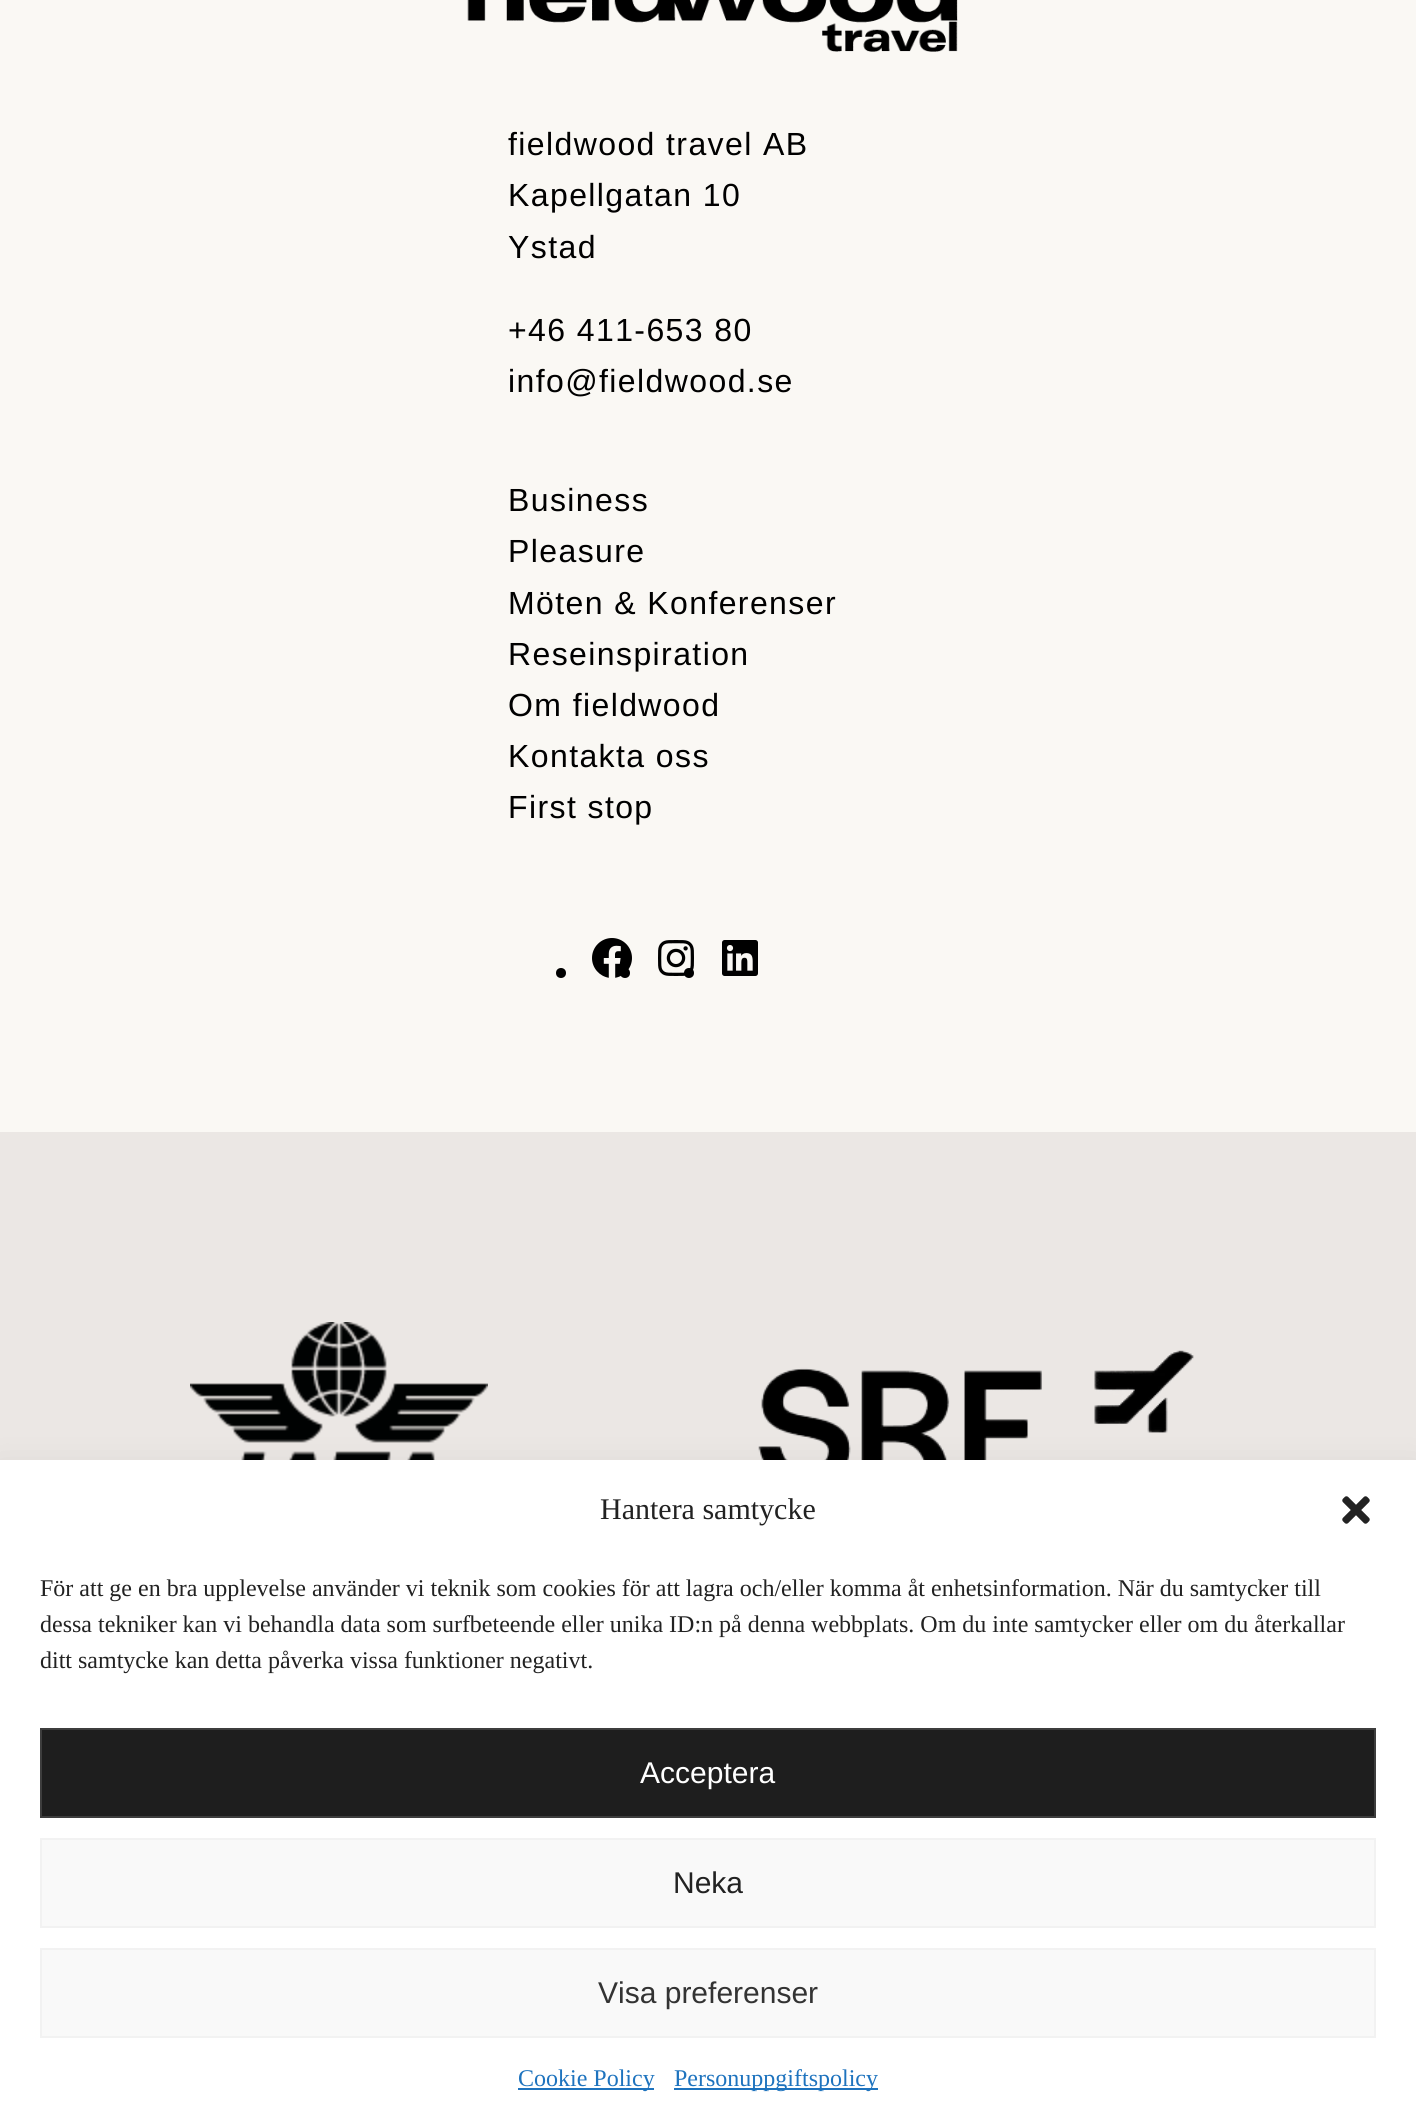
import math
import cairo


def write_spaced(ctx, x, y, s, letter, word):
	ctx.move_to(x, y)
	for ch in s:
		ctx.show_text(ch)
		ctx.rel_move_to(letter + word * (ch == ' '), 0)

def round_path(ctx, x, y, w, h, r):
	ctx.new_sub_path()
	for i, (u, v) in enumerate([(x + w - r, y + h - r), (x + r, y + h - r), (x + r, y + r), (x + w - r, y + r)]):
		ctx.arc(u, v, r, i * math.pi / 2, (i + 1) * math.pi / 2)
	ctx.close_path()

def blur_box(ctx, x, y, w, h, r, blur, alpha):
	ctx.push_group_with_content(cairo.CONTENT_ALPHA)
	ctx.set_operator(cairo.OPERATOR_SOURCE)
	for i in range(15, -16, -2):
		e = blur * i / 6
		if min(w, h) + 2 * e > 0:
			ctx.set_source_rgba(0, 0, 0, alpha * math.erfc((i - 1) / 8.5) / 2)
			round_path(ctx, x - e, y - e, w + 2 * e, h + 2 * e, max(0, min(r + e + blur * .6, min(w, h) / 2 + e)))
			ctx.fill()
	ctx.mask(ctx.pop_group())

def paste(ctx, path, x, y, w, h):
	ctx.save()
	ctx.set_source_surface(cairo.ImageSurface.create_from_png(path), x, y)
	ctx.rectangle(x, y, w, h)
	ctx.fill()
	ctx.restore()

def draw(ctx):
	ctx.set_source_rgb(0.98, 0.969, 0.957)
	ctx.paint()
	paste(ctx, 'media/1.png', 467, 0, 491, 52)
	ctx.select_font_face('Liberation Sans')
	ctx.set_font_size(32)
	ctx.set_source_rgb(0, 0, 0)
	for x, y, s in [
		(508, 155, 'fieldwood travel AB'),
		(508, 206, 'Kapellgatan 10'),
		(508, 258, 'Ystad'),
		(508, 341, '+46 411-653 80'),
		(508, 392, 'info@fieldwood.se'),
		(508, 511, 'Business'),
		(508, 562, 'Pleasure'),
		(508, 614, 'Möten & Konferenser'),
		(508, 665, 'Reseinspiration'),
		(508, 716, 'Om fieldwood'),
		(508, 767, 'Kontakta oss'),
		(508, 818, 'First stop'),
	]:
		write_spaced(ctx, x, y, s, 1.4, 0)
	ctx.new_path()
	ctx.arc(561, 973, 5, 0, 2 * math.pi)
	ctx.fill()
	ctx.arc(625, 973, 5, 0, 2 * math.pi)
	ctx.fill()
	paste(ctx, 'media/2.png', 592, 938, 40, 40)
	ctx.arc(689, 973, 5, 0, 2 * math.pi)
	ctx.fill()
	paste(ctx, 'media/3.png', 658, 940, 36, 36)
	paste(ctx, 'media/4.png', 722, 940, 36, 36)
	ctx.set_source_rgb(0.918, 0.906, 0.894)
	ctx.rectangle(0, 1132, 1416, 328)
	ctx.fill()
	paste(ctx, 'media/5.png', 190, 1322, 298, 138)
	paste(ctx, 'media/6.png', 758, 1350, 436, 110)
	ctx.set_source_rgb(0, 0, 0)
	blur_box(ctx, 0, 1480, 1416, 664, 0, 20, 0.19)
	ctx.set_source_rgb(1, 1, 1)
	ctx.rectangle(0, 1460, 1416, 663)
	ctx.fill()
	ctx.select_font_face('Liberation Serif')
	ctx.set_font_size(30)
	ctx.set_source_rgb(0.133, 0.133, 0.133)
	ctx.move_to(600, 1519)
	ctx.show_text('Hantera samtycke')
	paste(ctx, 'media/7.png', 1342, 1496, 28, 28)
	ctx.set_font_size(24)
	for x, y, s in [
		(40, 1596, 'För att ge en bra upplevelse använder vi teknik som cookies för att lagra och/eller komma åt enhetsinformation. När du samtycker till'),
		(40, 1632, 'dessa tekniker kan vi behandla data som surfbeteende eller unika ID:n på denna webbplats. Om du inte samtycker eller om du återkallar'),
		(40, 1668, 'ditt samtycke kan detta påverka vissa funktioner negativt.'),
	]:
		ctx.move_to(x, y)
		ctx.show_text(s)
	ctx.set_source_rgb(0.118, 0.118, 0.118)
	ctx.rectangle(41, 1729, 1334, 88)
	ctx.fill_preserve()
	ctx.set_source_rgb(0.239, 0.239, 0.239)
	ctx.stroke()
	ctx.select_font_face('Liberation Sans')
	ctx.set_font_size(30)
	ctx.set_source_rgb(1, 1, 1)
	ctx.move_to(640, 1783)
	ctx.show_text('Acceptera')
	ctx.set_source_rgb(0.976, 0.976, 0.976)
	ctx.rectangle(41, 1839, 1334, 88)
	ctx.fill_preserve()
	ctx.set_source_rgb(0.949, 0.949, 0.949)
	ctx.stroke()
	ctx.set_source_rgb(0.133, 0.133, 0.133)
	ctx.move_to(673, 1893)
	ctx.show_text('Neka')
	ctx.set_source_rgb(0.976, 0.976, 0.976)
	ctx.rectangle(41, 1949, 1334, 88)
	ctx.fill_preserve()
	ctx.set_source_rgb(0.949, 0.949, 0.949)
	ctx.stroke()
	ctx.set_source_rgb(0.2, 0.2, 0.2)
	ctx.move_to(598, 2003)
	ctx.show_text('Visa preferenser')
	ctx.set_source_rgb(0.118, 0.451, 0.745)
	ctx.rectangle(518, 2088, 136, 2)
	ctx.fill()
	ctx.select_font_face('Liberation Serif')
	ctx.set_font_size(24)
	ctx.move_to(518, 2086)
	ctx.show_text('Cookie Policy')
	ctx.rectangle(674, 2088, 204, 2)
	ctx.fill()
	ctx.move_to(674, 2086)
	ctx.show_text('Personuppgiftspolicy')


surface = cairo.ImageSurface(cairo.FORMAT_RGB24, 1416, 2123)
ctx = cairo.Context(surface)
options = cairo.FontOptions()
options.set_hint_metrics(cairo.HINT_METRICS_OFF)
options.set_hint_style(cairo.HINT_STYLE_NONE)
ctx.set_font_options(options)
ctx.set_miter_limit(4)
draw(ctx)
surface.write_to_png('image.png')
